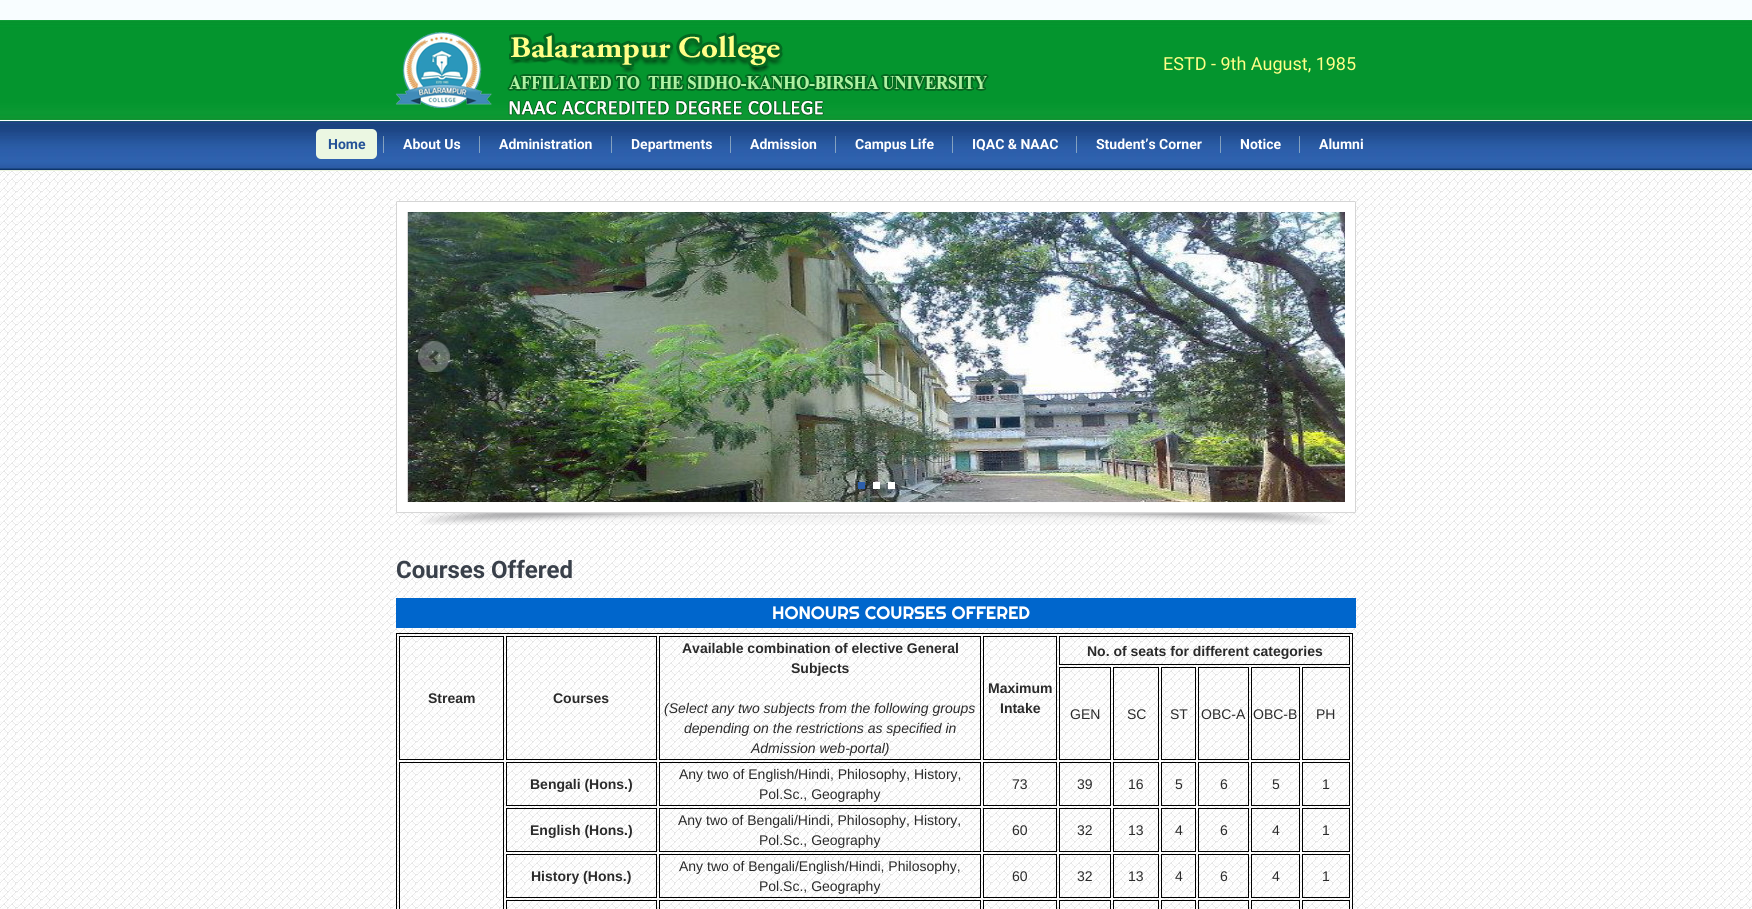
import math
import cairo


def round_path(ctx, x, y, w, h, r):
	ctx.new_sub_path()
	for i, (u, v) in enumerate([(x + w - r, y + h - r), (x + r, y + h - r), (x + r, y + r), (x + w - r, y + r)]):
		ctx.arc(u, v, r, i * math.pi / 2, (i + 1) * math.pi / 2)
	ctx.close_path()

def paste(ctx, path, x, y, w, h):
	ctx.save()
	ctx.set_source_surface(cairo.ImageSurface.create_from_png(path), x, y)
	ctx.rectangle(x, y, w, h)
	ctx.fill()
	ctx.restore()

def draw(ctx):
	ctx.set_source_rgb(0.969, 0.992, 1)
	ctx.paint()
	paste(ctx, 'media/1.png', 0, 20, 1752, 100)
	paste(ctx, 'media/2.png', 396, 32, 593, 84)
	ctx.select_font_face('Roboto')
	ctx.set_font_size(18)
	ctx.set_source_rgb(1, 1, 0.533)
	ctx.move_to(1163, 70)
	ctx.show_text('ESTD - 9th August, 1985')
	paste(ctx, 'media/3.png', 0, 120, 1752, 51)
	paste(ctx, 'media/4.png', 383, 136, 1, 17)
	ctx.set_source_rgb(0.918, 0.965, 0.886)
	round_path(ctx, 316, 129, 61, 30, 5)
	ctx.fill()
	ctx.select_font_face('Roboto', cairo.FONT_SLANT_NORMAL, cairo.FONT_WEIGHT_BOLD)
	ctx.set_font_size(14)
	ctx.set_source_rgb(0.141, 0.322, 0.592)
	ctx.move_to(328, 149)
	ctx.show_text('Home')
	paste(ctx, 'media/4.png', 479, 136, 1, 17)
	ctx.set_source_rgb(1, 1, 1)
	ctx.move_to(403, 149)
	ctx.show_text('About Us')
	paste(ctx, 'media/4.png', 611, 136, 1, 17)
	ctx.move_to(499, 149)
	ctx.show_text('Administration')
	paste(ctx, 'media/4.png', 730, 136, 1, 17)
	ctx.move_to(631, 149)
	ctx.show_text('Departments')
	paste(ctx, 'media/4.png', 835, 136, 1, 17)
	ctx.move_to(750, 149)
	ctx.show_text('Admission')
	paste(ctx, 'media/4.png', 952, 136, 1, 17)
	ctx.move_to(855, 149)
	ctx.show_text('Campus Life')
	paste(ctx, 'media/4.png', 1076, 136, 1, 17)
	ctx.move_to(972, 149)
	ctx.show_text('IQAC & NAAC')
	paste(ctx, 'media/4.png', 1220, 136, 1, 17)
	ctx.move_to(1096, 149)
	ctx.show_text('Student’s Corner')
	paste(ctx, 'media/4.png', 1299, 136, 1, 17)
	ctx.move_to(1240, 149)
	ctx.show_text('Notice')
	ctx.move_to(1319, 149)
	ctx.show_text('Alumni')
	paste(ctx, 'media/5.png', 0, 171, 1752, 738)
	paste(ctx, 'media/6.png', 396, 201, 960, 324)
	paste(ctx, 'media/7.png', 408, 212, 937, 290)
	paste(ctx, 'media/8.png', 418, 341, 32, 31)
	paste(ctx, 'media/9.png', 1303, 341, 32, 31)
	ctx.set_source_rgb(0.176, 0.373, 0.671)
	ctx.rectangle(858, 482, 7, 7)
	ctx.fill()
	ctx.set_source_rgb(1, 1, 1)
	ctx.rectangle(873, 482, 7, 7)
	ctx.rectangle(888, 482, 7, 7)
	ctx.fill()
	ctx.set_font_size(24)
	ctx.set_source_rgb(0.224, 0.251, 0.29)
	ctx.move_to(396, 578)
	ctx.show_text('Courses Offered')
	ctx.set_source_rgb(0, 0.4, 0.8)
	ctx.rectangle(396, 598, 960, 30)
	ctx.fill()
	ctx.select_font_face('Righteous')
	ctx.set_font_size(18)
	ctx.set_source_rgb(1, 1, 1)
	ctx.move_to(772, 619)
	ctx.show_text('HONOURS COURSES OFFERED')
	ctx.rectangle(396.5, 633.5, 956, 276)
	ctx.set_source_rgb(0, 0, 0)
	ctx.set_line_width(1)
	ctx.stroke()
	ctx.rectangle(659.5, 636.5, 321, 123)
	ctx.stroke()
	ctx.select_font_face('Liberation Sans', cairo.FONT_SLANT_NORMAL, cairo.FONT_WEIGHT_BOLD)
	ctx.set_font_size(14)
	ctx.set_source_rgb(0.165, 0.165, 0.165)
	ctx.move_to(682, 653)
	ctx.show_text('Available combination of elective General')
	ctx.move_to(791, 673)
	ctx.show_text('Subjects')
	ctx.select_font_face('Liberation Sans', cairo.FONT_SLANT_ITALIC)
	for x, y, s in [
		(664, 713, '(Select any two subjects from the following groups'),
		(684, 733, 'depending on the restrictions as specified in'),
		(751, 753, 'Admission web-portal)'),
	]:
		ctx.move_to(x, y)
		ctx.show_text(s)
	ctx.rectangle(1059.5, 636.5, 290, 28)
	ctx.set_source_rgb(0, 0, 0)
	ctx.stroke()
	ctx.select_font_face('Liberation Sans', cairo.FONT_SLANT_NORMAL, cairo.FONT_WEIGHT_BOLD)
	ctx.set_source_rgb(0.165, 0.165, 0.165)
	ctx.move_to(1087, 656)
	ctx.show_text('No. of seats for different categories')
	ctx.rectangle(399.5, 636.5, 104, 123)
	ctx.set_source_rgb(0, 0, 0)
	ctx.stroke()
	ctx.set_source_rgb(0.165, 0.165, 0.165)
	ctx.move_to(428, 703)
	ctx.show_text('Stream')
	ctx.rectangle(506.5, 636.5, 150, 123)
	ctx.set_source_rgb(0, 0, 0)
	ctx.stroke()
	ctx.set_source_rgb(0.165, 0.165, 0.165)
	ctx.move_to(553, 703)
	ctx.show_text('Courses')
	ctx.rectangle(983.5, 636.5, 73, 123)
	ctx.set_source_rgb(0, 0, 0)
	ctx.stroke()
	ctx.set_source_rgb(0.165, 0.165, 0.165)
	ctx.move_to(988, 693)
	ctx.show_text('Maximum')
	ctx.move_to(1000, 713)
	ctx.show_text('Intake')
	ctx.rectangle(1059.5, 667.5, 51, 92)
	ctx.set_source_rgb(0, 0, 0)
	ctx.stroke()
	ctx.select_font_face('Liberation Sans')
	ctx.set_source_rgb(0.165, 0.165, 0.165)
	ctx.move_to(1070, 719)
	ctx.show_text('GEN')
	ctx.rectangle(1113.5, 667.5, 45, 92)
	ctx.set_source_rgb(0, 0, 0)
	ctx.stroke()
	ctx.set_source_rgb(0.165, 0.165, 0.165)
	ctx.move_to(1127, 719)
	ctx.show_text('SC')
	ctx.rectangle(1161.5, 667.5, 34, 92)
	ctx.set_source_rgb(0, 0, 0)
	ctx.stroke()
	ctx.set_source_rgb(0.165, 0.165, 0.165)
	ctx.move_to(1170, 719)
	ctx.show_text('ST')
	ctx.rectangle(1198.5, 667.5, 50, 92)
	ctx.set_source_rgb(0, 0, 0)
	ctx.stroke()
	ctx.set_source_rgb(0.165, 0.165, 0.165)
	ctx.move_to(1201, 719)
	ctx.show_text('OBC-A')
	ctx.rectangle(1251.5, 667.5, 48, 92)
	ctx.set_source_rgb(0, 0, 0)
	ctx.stroke()
	ctx.set_source_rgb(0.165, 0.165, 0.165)
	ctx.move_to(1253, 719)
	ctx.show_text('OBC-B')
	ctx.rectangle(1302.5, 667.5, 47, 92)
	ctx.set_source_rgb(0, 0, 0)
	ctx.stroke()
	ctx.set_source_rgb(0.165, 0.165, 0.165)
	ctx.move_to(1316, 719)
	ctx.show_text('PH')
	ctx.rectangle(399.5, 762.5, 104, 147)
	ctx.set_source_rgb(0, 0, 0)
	ctx.stroke()
	ctx.rectangle(506.5, 762.5, 150, 43)
	ctx.stroke()
	ctx.select_font_face('Liberation Sans', cairo.FONT_SLANT_NORMAL, cairo.FONT_WEIGHT_BOLD)
	ctx.set_source_rgb(0.165, 0.165, 0.165)
	ctx.move_to(530, 789)
	ctx.show_text('Bengali (Hons.)')
	ctx.rectangle(659.5, 762.5, 321, 43)
	ctx.set_source_rgb(0, 0, 0)
	ctx.stroke()
	ctx.select_font_face('Liberation Sans')
	ctx.set_source_rgb(0.165, 0.165, 0.165)
	ctx.move_to(679, 779)
	ctx.show_text('Any two of English/Hindi, Philosophy, History,')
	ctx.move_to(759, 799)
	ctx.show_text('Pol.Sc., Geography')
	ctx.rectangle(983.5, 762.5, 73, 43)
	ctx.set_source_rgb(0, 0, 0)
	ctx.stroke()
	ctx.set_source_rgb(0.165, 0.165, 0.165)
	ctx.move_to(1012, 789)
	ctx.show_text('73')
	ctx.rectangle(1059.5, 762.5, 51, 43)
	ctx.set_source_rgb(0, 0, 0)
	ctx.stroke()
	ctx.set_source_rgb(0.165, 0.165, 0.165)
	ctx.move_to(1077, 789)
	ctx.show_text('39')
	ctx.rectangle(1113.5, 762.5, 45, 43)
	ctx.set_source_rgb(0, 0, 0)
	ctx.stroke()
	ctx.set_source_rgb(0.165, 0.165, 0.165)
	ctx.move_to(1128, 789)
	ctx.show_text('16')
	ctx.rectangle(1161.5, 762.5, 34, 43)
	ctx.set_source_rgb(0, 0, 0)
	ctx.stroke()
	ctx.set_source_rgb(0.165, 0.165, 0.165)
	ctx.move_to(1175, 789)
	ctx.show_text('5')
	ctx.rectangle(1198.5, 762.5, 50, 43)
	ctx.set_source_rgb(0, 0, 0)
	ctx.stroke()
	ctx.set_source_rgb(0.165, 0.165, 0.165)
	ctx.move_to(1220, 789)
	ctx.show_text('6')
	ctx.rectangle(1251.5, 762.5, 48, 43)
	ctx.set_source_rgb(0, 0, 0)
	ctx.stroke()
	ctx.set_source_rgb(0.165, 0.165, 0.165)
	ctx.move_to(1272, 789)
	ctx.show_text('5')
	ctx.rectangle(1302.5, 762.5, 47, 43)
	ctx.set_source_rgb(0, 0, 0)
	ctx.stroke()
	ctx.set_source_rgb(0.165, 0.165, 0.165)
	ctx.move_to(1322, 789)
	ctx.show_text('1')
	ctx.rectangle(506.5, 808.5, 150, 43)
	ctx.set_source_rgb(0, 0, 0)
	ctx.stroke()
	ctx.select_font_face('Liberation Sans', cairo.FONT_SLANT_NORMAL, cairo.FONT_WEIGHT_BOLD)
	ctx.set_source_rgb(0.165, 0.165, 0.165)
	ctx.move_to(530, 835)
	ctx.show_text('English (Hons.)')
	ctx.rectangle(659.5, 808.5, 321, 43)
	ctx.set_source_rgb(0, 0, 0)
	ctx.stroke()
	ctx.select_font_face('Liberation Sans')
	ctx.set_source_rgb(0.165, 0.165, 0.165)
	ctx.move_to(678, 825)
	ctx.show_text('Any two of Bengali/Hindi, Philosophy, History,')
	ctx.move_to(759, 845)
	ctx.show_text('Pol.Sc., Geography')
	ctx.rectangle(983.5, 808.5, 73, 43)
	ctx.set_source_rgb(0, 0, 0)
	ctx.stroke()
	ctx.set_source_rgb(0.165, 0.165, 0.165)
	ctx.move_to(1012, 835)
	ctx.show_text('60')
	ctx.rectangle(1059.5, 808.5, 51, 43)
	ctx.set_source_rgb(0, 0, 0)
	ctx.stroke()
	ctx.set_source_rgb(0.165, 0.165, 0.165)
	ctx.move_to(1077, 835)
	ctx.show_text('32')
	ctx.rectangle(1113.5, 808.5, 45, 43)
	ctx.set_source_rgb(0, 0, 0)
	ctx.stroke()
	ctx.set_source_rgb(0.165, 0.165, 0.165)
	ctx.move_to(1128, 835)
	ctx.show_text('13')
	ctx.rectangle(1161.5, 808.5, 34, 43)
	ctx.set_source_rgb(0, 0, 0)
	ctx.stroke()
	ctx.set_source_rgb(0.165, 0.165, 0.165)
	ctx.move_to(1175, 835)
	ctx.show_text('4')
	ctx.rectangle(1198.5, 808.5, 50, 43)
	ctx.set_source_rgb(0, 0, 0)
	ctx.stroke()
	ctx.set_source_rgb(0.165, 0.165, 0.165)
	ctx.move_to(1220, 835)
	ctx.show_text('6')
	ctx.rectangle(1251.5, 808.5, 48, 43)
	ctx.set_source_rgb(0, 0, 0)
	ctx.stroke()
	ctx.set_source_rgb(0.165, 0.165, 0.165)
	ctx.move_to(1272, 835)
	ctx.show_text('4')
	ctx.rectangle(1302.5, 808.5, 47, 43)
	ctx.set_source_rgb(0, 0, 0)
	ctx.stroke()
	ctx.set_source_rgb(0.165, 0.165, 0.165)
	ctx.move_to(1322, 835)
	ctx.show_text('1')
	ctx.rectangle(506.5, 854.5, 150, 43)
	ctx.set_source_rgb(0, 0, 0)
	ctx.stroke()
	ctx.select_font_face('Liberation Sans', cairo.FONT_SLANT_NORMAL, cairo.FONT_WEIGHT_BOLD)
	ctx.set_source_rgb(0.165, 0.165, 0.165)
	ctx.move_to(531, 881)
	ctx.show_text('History (Hons.)')
	ctx.rectangle(659.5, 854.5, 321, 43)
	ctx.set_source_rgb(0, 0, 0)
	ctx.stroke()
	ctx.select_font_face('Liberation Sans')
	ctx.set_source_rgb(0.165, 0.165, 0.165)
	ctx.move_to(679, 871)
	ctx.show_text('Any two of Bengali/English/Hindi, Philosophy,')
	ctx.move_to(759, 891)
	ctx.show_text('Pol.Sc., Geography')
	ctx.rectangle(983.5, 854.5, 73, 43)
	ctx.set_source_rgb(0, 0, 0)
	ctx.stroke()
	ctx.set_source_rgb(0.165, 0.165, 0.165)
	ctx.move_to(1012, 881)
	ctx.show_text('60')
	ctx.rectangle(1059.5, 854.5, 51, 43)
	ctx.set_source_rgb(0, 0, 0)
	ctx.stroke()
	ctx.set_source_rgb(0.165, 0.165, 0.165)
	ctx.move_to(1077, 881)
	ctx.show_text('32')
	ctx.rectangle(1113.5, 854.5, 45, 43)
	ctx.set_source_rgb(0, 0, 0)
	ctx.stroke()
	ctx.set_source_rgb(0.165, 0.165, 0.165)
	ctx.move_to(1128, 881)
	ctx.show_text('13')
	ctx.rectangle(1161.5, 854.5, 34, 43)
	ctx.set_source_rgb(0, 0, 0)
	ctx.stroke()
	ctx.set_source_rgb(0.165, 0.165, 0.165)
	ctx.move_to(1175, 881)
	ctx.show_text('4')
	ctx.rectangle(1198.5, 854.5, 50, 43)
	ctx.set_source_rgb(0, 0, 0)
	ctx.stroke()
	ctx.set_source_rgb(0.165, 0.165, 0.165)
	ctx.move_to(1220, 881)
	ctx.show_text('6')
	ctx.rectangle(1251.5, 854.5, 48, 43)
	ctx.set_source_rgb(0, 0, 0)
	ctx.stroke()
	ctx.set_source_rgb(0.165, 0.165, 0.165)
	ctx.move_to(1272, 881)
	ctx.show_text('4')
	ctx.rectangle(1302.5, 854.5, 47, 43)
	ctx.set_source_rgb(0, 0, 0)
	ctx.stroke()
	ctx.set_source_rgb(0.165, 0.165, 0.165)
	ctx.move_to(1322, 881)
	ctx.show_text('1')
	ctx.rectangle(506.5, 900.5, 150, 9)
	ctx.set_source_rgb(0, 0, 0)
	ctx.stroke()
	ctx.rectangle(659.5, 900.5, 321, 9)
	ctx.stroke()
	ctx.rectangle(983.5, 900.5, 73, 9)
	ctx.stroke()
	ctx.rectangle(1059.5, 900.5, 51, 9)
	ctx.stroke()
	ctx.rectangle(1113.5, 900.5, 45, 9)
	ctx.stroke()
	ctx.rectangle(1161.5, 900.5, 34, 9)
	ctx.stroke()
	ctx.rectangle(1198.5, 900.5, 50, 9)
	ctx.stroke()
	ctx.rectangle(1251.5, 900.5, 48, 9)
	ctx.stroke()
	ctx.rectangle(1302.5, 900.5, 47, 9)
	ctx.stroke()


surface = cairo.ImageSurface(cairo.FORMAT_RGB24, 1752, 909)
ctx = cairo.Context(surface)
options = cairo.FontOptions()
options.set_hint_metrics(cairo.HINT_METRICS_OFF)
options.set_hint_style(cairo.HINT_STYLE_NONE)
ctx.set_font_options(options)
ctx.set_miter_limit(4)
draw(ctx)
surface.write_to_png('image.png')
